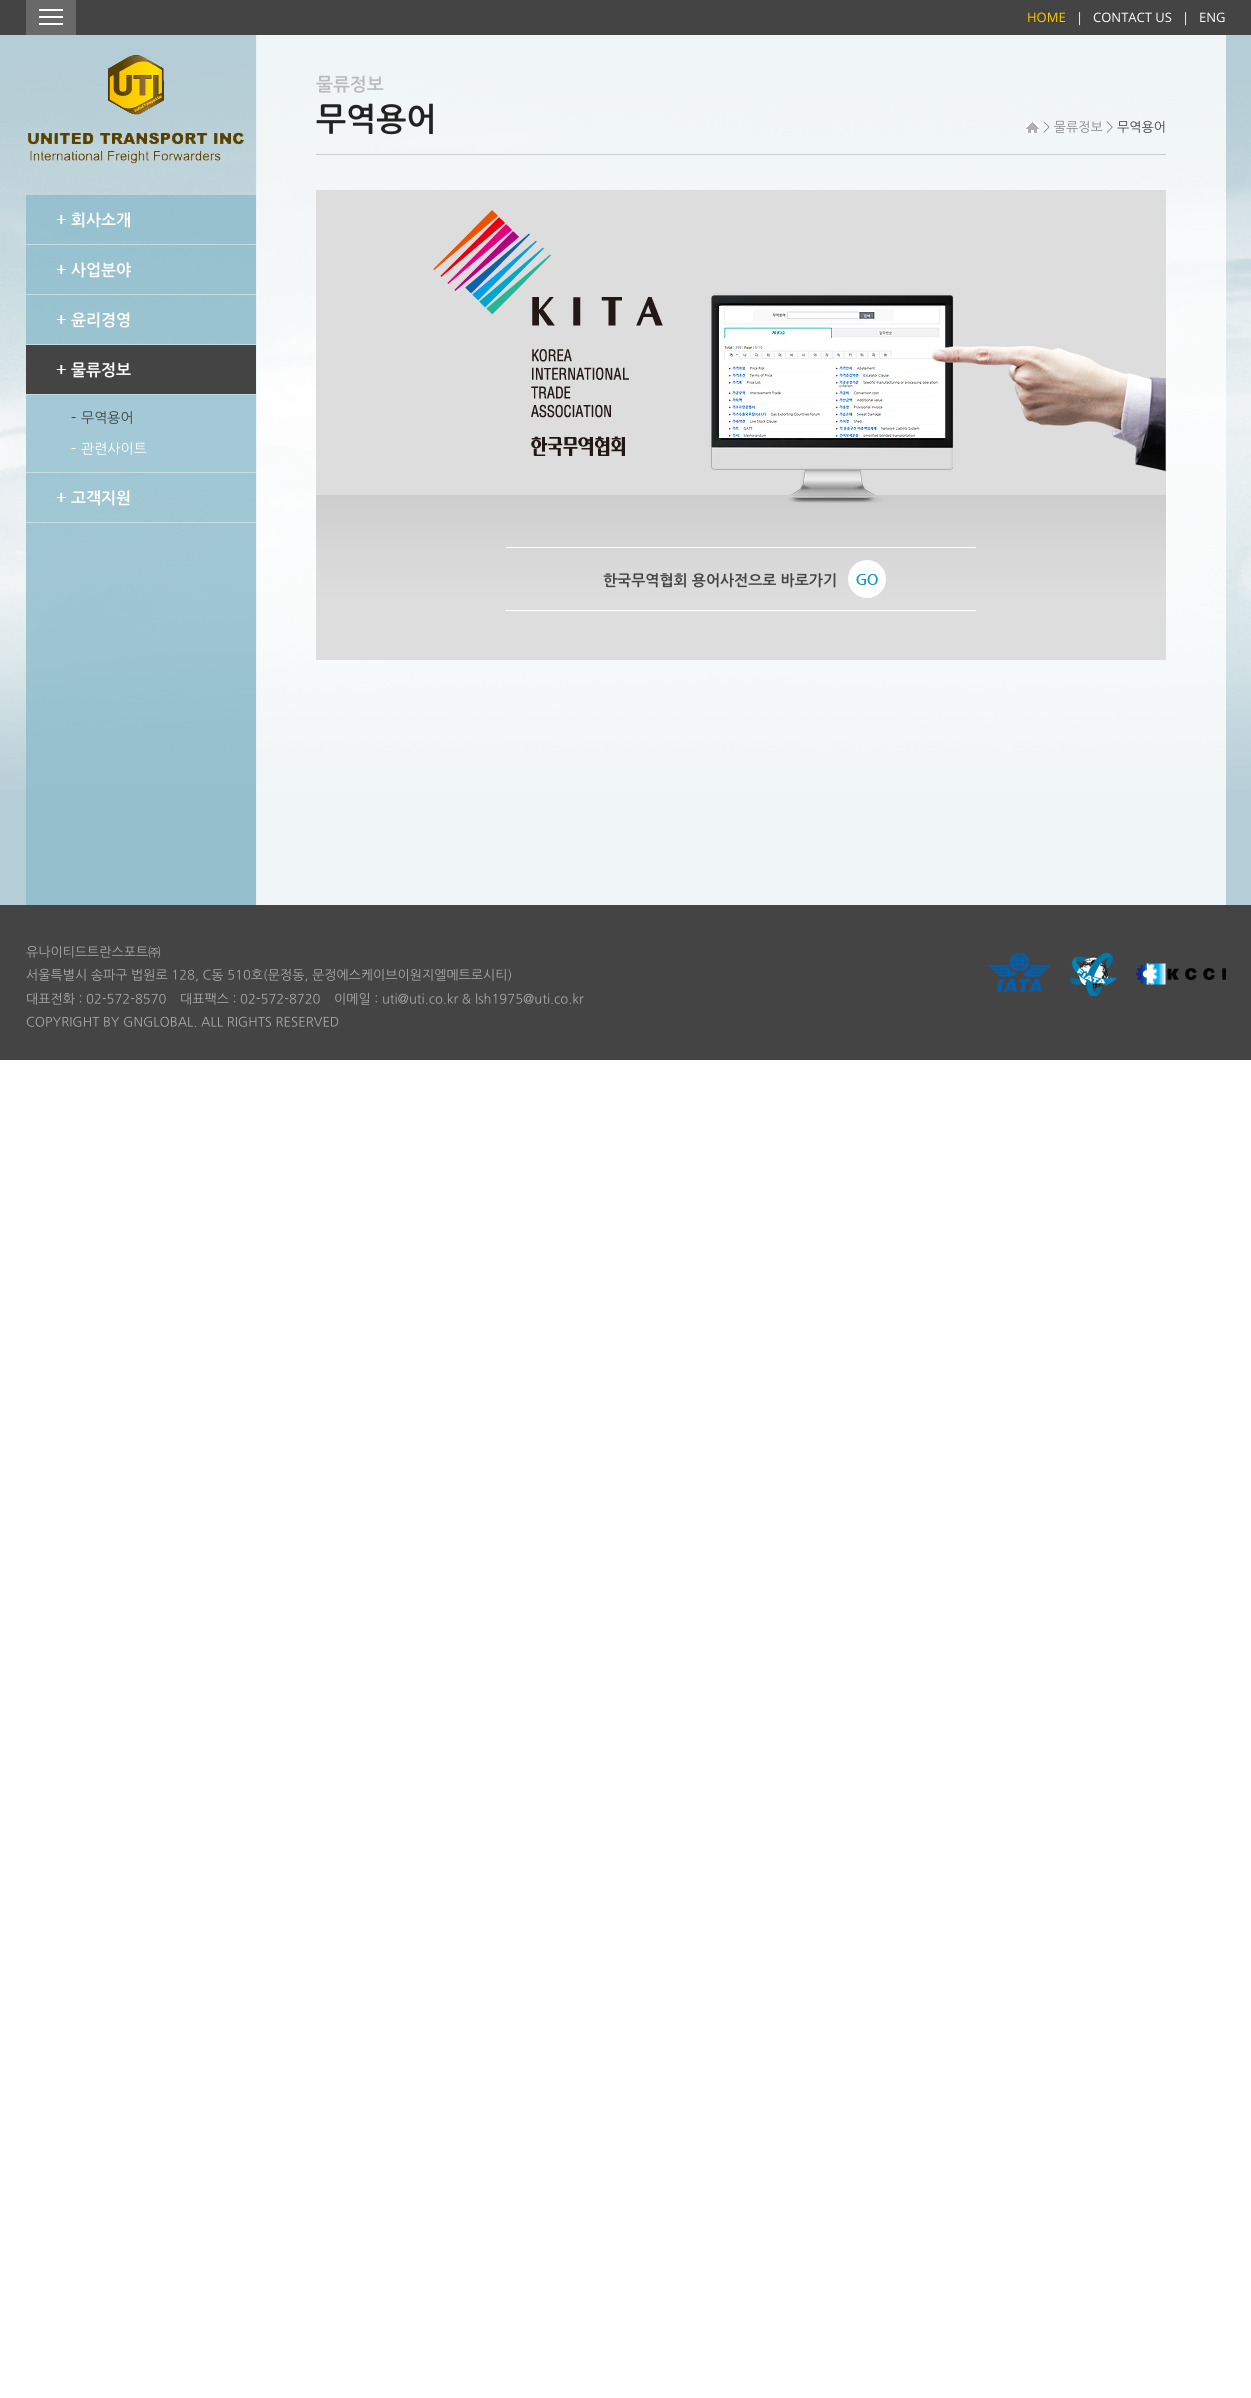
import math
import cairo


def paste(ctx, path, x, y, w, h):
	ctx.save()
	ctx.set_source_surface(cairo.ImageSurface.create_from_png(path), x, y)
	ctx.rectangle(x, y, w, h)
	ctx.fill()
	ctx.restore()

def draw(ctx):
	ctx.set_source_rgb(1, 1, 1)
	ctx.paint()
	ctx.set_source_rgb(0.71, 0.804, 0.839)
	ctx.rectangle(0, 35, 1251, 870)
	ctx.fill()
	paste(ctx, 'media/1.png', 0, 82, 1251, 708)
	ctx.set_source_rgb(0.267, 0.267, 0.267)
	ctx.rectangle(0, 0, 1251, 35)
	ctx.fill()
	ctx.set_source_rgb(0.412, 0.412, 0.412)
	ctx.rectangle(26, 0, 50, 35)
	ctx.fill()
	ctx.set_source_rgb(1, 1, 1)
	ctx.rectangle(39, 9, 24, 2)
	ctx.rectangle(39, 16, 24, 2)
	ctx.rectangle(39, 23, 24, 2)
	ctx.fill()
	ctx.select_font_face('Open Sans')
	ctx.set_font_size(13)
	ctx.set_source_rgb(0.996, 0.796, 0)
	ctx.move_to(1027, 22)
	ctx.show_text('HOME')
	ctx.set_source_rgb(1, 1, 1)
	for x, y, s in [
		(1076, 22, '|'),
		(1093, 22, 'CONTACT US'),
		(1182, 22, '|'),
		(1199, 22, 'ENG'),
	]:
		ctx.move_to(x, y)
		ctx.show_text(s)
	ctx.set_source_rgba(0.549, 0.737, 0.792, 0.8)
	ctx.rectangle(26, 35, 231, 870)
	ctx.fill()
	paste(ctx, 'media/2.png', 26, 35, 230, 160)
	paste(ctx, 'media/3.png', 56, 215, 10, 9)
	ctx.set_source_rgb(0.773, 0.867, 0.898)
	ctx.rectangle(26, 244, 230, 1)
	ctx.fill()
	ctx.select_font_face('NanumGothic', cairo.FONT_SLANT_NORMAL, cairo.FONT_WEIGHT_BOLD)
	ctx.set_font_size(16)
	ctx.set_source_rgb(1, 1, 1)
	ctx.move_to(71, 225)
	ctx.show_text('회사소개')
	paste(ctx, 'media/4.png', 56, 265, 10, 9)
	ctx.set_source_rgb(0.773, 0.867, 0.898)
	ctx.rectangle(26, 294, 230, 1)
	ctx.fill()
	ctx.set_source_rgb(1, 1, 1)
	ctx.move_to(71, 275)
	ctx.show_text('사업분야')
	paste(ctx, 'media/5.png', 56, 315, 10, 9)
	ctx.set_source_rgb(0.773, 0.867, 0.898)
	ctx.rectangle(26, 344, 230, 1)
	ctx.fill()
	ctx.set_source_rgb(1, 1, 1)
	ctx.move_to(71, 325)
	ctx.show_text('윤리경영')
	ctx.set_source_rgb(0.267, 0.267, 0.267)
	ctx.rectangle(26, 345, 230, 49)
	ctx.fill()
	paste(ctx, 'media/6.png', 56, 365, 10, 9)
	ctx.set_source_rgb(0.773, 0.867, 0.898)
	ctx.rectangle(26, 394, 230, 1)
	ctx.fill()
	ctx.set_source_rgb(1, 1, 1)
	ctx.move_to(71, 375)
	ctx.show_text('물류정보')
	ctx.set_source_rgb(0.635, 0.788, 0.835)
	ctx.rectangle(26, 395, 230, 77)
	ctx.fill()
	ctx.set_source_rgb(0.773, 0.867, 0.898)
	ctx.rectangle(26, 472, 230, 1)
	ctx.fill()
	paste(ctx, 'media/7.png', 71, 417, 5, 1)
	ctx.select_font_face('NanumGothic')
	ctx.set_font_size(14)
	ctx.set_source_rgb(0.267, 0.267, 0.267)
	ctx.move_to(81, 422)
	ctx.show_text('무역용어')
	paste(ctx, 'media/8.png', 71, 448, 5, 1)
	ctx.set_source_rgb(1, 1, 1)
	ctx.move_to(81, 453)
	ctx.show_text('관련사이트')
	paste(ctx, 'media/9.png', 56, 493, 10, 9)
	ctx.set_source_rgb(0.773, 0.867, 0.898)
	ctx.rectangle(26, 522, 230, 1)
	ctx.fill()
	ctx.select_font_face('NanumGothic', cairo.FONT_SLANT_NORMAL, cairo.FONT_WEIGHT_BOLD)
	ctx.set_font_size(16)
	ctx.set_source_rgb(1, 1, 1)
	ctx.move_to(71, 503)
	ctx.show_text('고객지원')
	ctx.set_source_rgba(1, 1, 1, 0.8)
	ctx.rectangle(256, 35, 970, 870)
	ctx.fill()
	ctx.set_source_rgb(0.8, 0.8, 0.8)
	ctx.rectangle(316, 154, 850, 1)
	ctx.fill()
	ctx.set_font_size(18)
	ctx.set_source_rgb(0.733, 0.733, 0.733)
	ctx.move_to(316, 90)
	ctx.show_text('물류정보')
	ctx.set_font_size(32)
	ctx.set_source_rgb(0.133, 0.133, 0.133)
	ctx.move_to(316, 129)
	ctx.show_text('무역용어')
	paste(ctx, 'media/10.png', 1026, 122, 13, 11)
	ctx.select_font_face('NanumGothic')
	ctx.set_font_size(13)
	ctx.set_source_rgb(0.533, 0.533, 0.533)
	ctx.move_to(1043, 131)
	ctx.show_text('> 물류정보 >')
	ctx.set_source_rgb(0.267, 0.267, 0.267)
	ctx.move_to(1117, 131)
	ctx.show_text('무역용어')
	paste(ctx, 'media/11.png', 316, 190, 850, 470)
	ctx.select_font_face('NanumGothic', cairo.FONT_SLANT_NORMAL, cairo.FONT_WEIGHT_BOLD)
	ctx.set_font_size(15)
	ctx.move_to(603, 585)
	ctx.show_text('한국무역협회 용어사전으로 바로가기')
	ctx.rectangle(0, 905, 1251, 155)
	ctx.fill()
	ctx.select_font_face('NanumGothic')
	ctx.set_font_size(13)
	ctx.set_source_rgb(0.667, 0.667, 0.667)
	for x, y, s in [
		(26, 956, '유나이티드트란스포트㈜'),
		(26, 979, '서울특별시 송파구 법원로 128, C동 510호(문정동, 문정에스케이브이원지엘메트로시티)'),
		(26, 1003, '대표전화 : 02-572-8570'),
		(180, 1003, '대표팩스 : 02-572-8720'),
		(334, 1003, '이메일 : uti@uti.co.kr & lsh1975@uti.co.kr'),
		(26, 1026, 'COPYRIGHT BY GNGLOBAL. ALL RIGHTS RESERVED'),
	]:
		ctx.move_to(x, y)
		ctx.show_text(s)
	paste(ctx, 'media/12.png', 988, 953, 63, 39)
	paste(ctx, 'media/13.png', 1070, 953, 47, 43)
	paste(ctx, 'media/14.png', 1136, 963, 90, 22)


surface = cairo.ImageSurface(cairo.FORMAT_RGB24, 1251, 2398)
ctx = cairo.Context(surface)
options = cairo.FontOptions()
options.set_hint_metrics(cairo.HINT_METRICS_OFF)
options.set_hint_style(cairo.HINT_STYLE_NONE)
ctx.set_font_options(options)
ctx.set_miter_limit(4)
draw(ctx)
surface.write_to_png('image.png')
